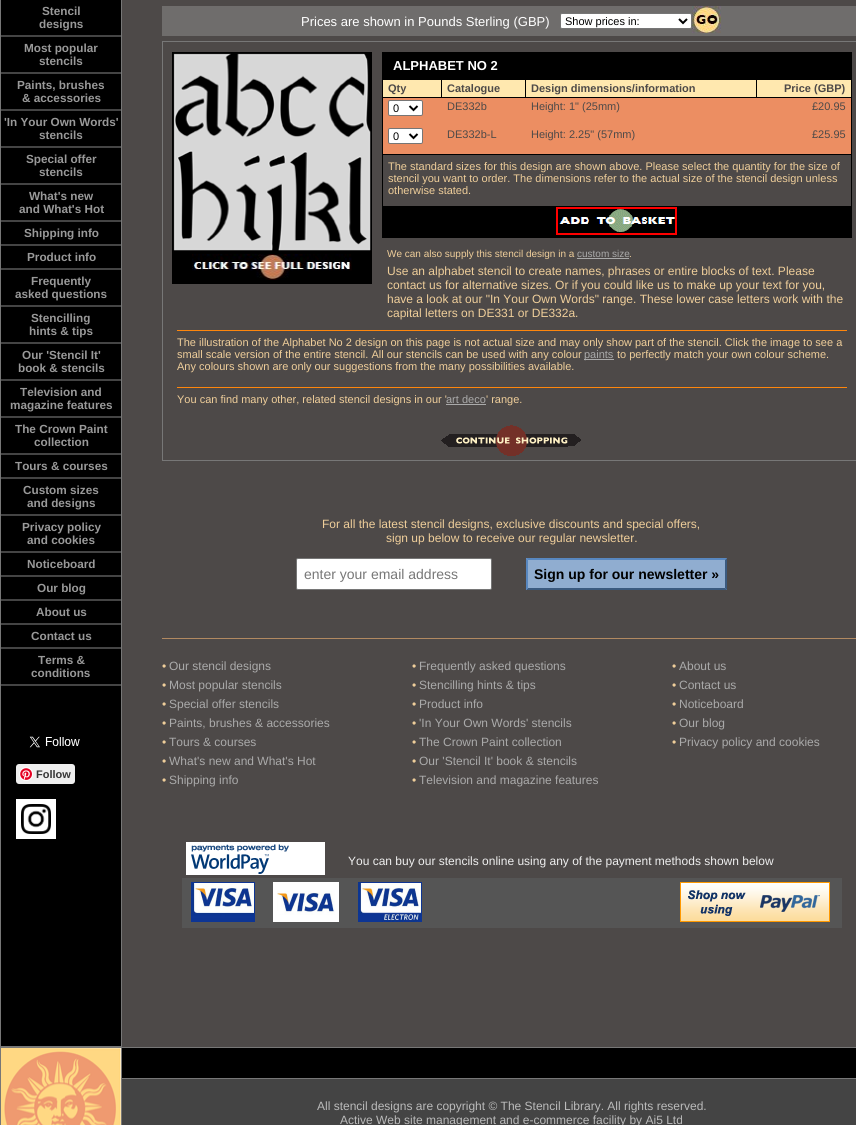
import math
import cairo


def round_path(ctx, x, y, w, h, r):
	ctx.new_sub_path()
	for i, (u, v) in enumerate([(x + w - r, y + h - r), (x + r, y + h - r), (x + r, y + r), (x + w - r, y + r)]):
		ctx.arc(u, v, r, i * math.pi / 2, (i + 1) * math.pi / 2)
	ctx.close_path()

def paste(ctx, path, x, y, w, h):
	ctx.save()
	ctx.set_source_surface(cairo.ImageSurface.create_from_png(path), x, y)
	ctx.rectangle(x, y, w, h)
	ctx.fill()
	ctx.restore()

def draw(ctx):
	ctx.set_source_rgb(0.267, 0.267, 0.267)
	ctx.paint()
	ctx.set_source_rgb(0, 0, 0)
	ctx.rectangle(0.5, -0.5, 121, 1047)
	ctx.fill_preserve()
	ctx.set_source_rgb(0.467, 0.467, 0.467)
	ctx.set_line_width(1)
	ctx.stroke()
	ctx.set_source_rgb(0.267, 0.267, 0.267)
	ctx.rectangle(1, 35, 120, 2)
	ctx.fill()
	ctx.select_font_face('Liberation Sans', cairo.FONT_SLANT_NORMAL, cairo.FONT_WEIGHT_BOLD)
	ctx.set_font_size(11.75)
	ctx.set_source_rgb(0.6, 0.6, 0.6)
	ctx.move_to(42, 15)
	ctx.show_text('Stencil')
	ctx.move_to(39, 28)
	ctx.show_text('designs')
	ctx.set_source_rgb(0.267, 0.267, 0.267)
	ctx.rectangle(1, 72, 120, 2)
	ctx.fill()
	ctx.set_source_rgb(0.6, 0.6, 0.6)
	ctx.move_to(24, 52)
	ctx.show_text('Most popular')
	ctx.move_to(39, 65)
	ctx.show_text('stencils')
	ctx.set_source_rgb(0.267, 0.267, 0.267)
	ctx.rectangle(1, 109, 120, 2)
	ctx.fill()
	ctx.set_source_rgb(0.6, 0.6, 0.6)
	ctx.move_to(17, 89)
	ctx.show_text('Paints, brushes')
	ctx.move_to(22, 102)
	ctx.show_text('& accessories')
	ctx.set_source_rgb(0.267, 0.267, 0.267)
	ctx.rectangle(1, 146, 120, 2)
	ctx.fill()
	ctx.set_source_rgb(0.6, 0.6, 0.6)
	ctx.move_to(4, 126)
	ctx.show_text('\'In Your Own Words\'')
	ctx.move_to(39, 139)
	ctx.show_text('stencils')
	ctx.set_source_rgb(0.267, 0.267, 0.267)
	ctx.rectangle(1, 183, 120, 2)
	ctx.fill()
	ctx.set_source_rgb(0.6, 0.6, 0.6)
	ctx.move_to(26, 163)
	ctx.show_text('Special offer')
	ctx.move_to(39, 176)
	ctx.show_text('stencils')
	ctx.set_source_rgb(0.267, 0.267, 0.267)
	ctx.rectangle(1, 220, 120, 2)
	ctx.fill()
	ctx.set_source_rgb(0.6, 0.6, 0.6)
	ctx.move_to(29, 200)
	ctx.show_text('What\'s new')
	ctx.move_to(19, 213)
	ctx.show_text('and What\'s Hot')
	ctx.set_source_rgb(0.267, 0.267, 0.267)
	ctx.rectangle(1, 244, 120, 2)
	ctx.fill()
	ctx.set_source_rgb(0.6, 0.6, 0.6)
	ctx.move_to(24, 237)
	ctx.show_text('Shipping info')
	ctx.set_source_rgb(0.267, 0.267, 0.267)
	ctx.rectangle(1, 268, 120, 2)
	ctx.fill()
	ctx.set_source_rgb(0.6, 0.6, 0.6)
	ctx.move_to(27, 261)
	ctx.show_text('Product info')
	ctx.set_source_rgb(0.267, 0.267, 0.267)
	ctx.rectangle(1, 305, 120, 2)
	ctx.fill()
	ctx.set_source_rgb(0.6, 0.6, 0.6)
	ctx.move_to(31, 285)
	ctx.show_text('Frequently')
	ctx.move_to(15, 298)
	ctx.show_text('asked questions')
	ctx.set_source_rgb(0.267, 0.267, 0.267)
	ctx.rectangle(1, 342, 120, 2)
	ctx.fill()
	ctx.set_source_rgb(0.6, 0.6, 0.6)
	ctx.move_to(31, 322)
	ctx.show_text('Stencilling')
	ctx.move_to(29, 335)
	ctx.show_text('hints & tips')
	ctx.set_source_rgb(0.267, 0.267, 0.267)
	ctx.rectangle(1, 379, 120, 2)
	ctx.fill()
	ctx.set_source_rgb(0.6, 0.6, 0.6)
	ctx.move_to(22, 359)
	ctx.show_text('Our \'Stencil It\'')
	ctx.move_to(18, 372)
	ctx.show_text('book & stencils')
	ctx.set_source_rgb(0.267, 0.267, 0.267)
	ctx.rectangle(1, 416, 120, 2)
	ctx.fill()
	ctx.set_source_rgb(0.6, 0.6, 0.6)
	ctx.move_to(20, 396)
	ctx.show_text('Television and')
	ctx.move_to(10, 409)
	ctx.show_text('magazine features')
	ctx.set_source_rgb(0.267, 0.267, 0.267)
	ctx.rectangle(1, 453, 120, 2)
	ctx.fill()
	ctx.set_source_rgb(0.6, 0.6, 0.6)
	ctx.move_to(15, 433)
	ctx.show_text('The Crown Paint')
	ctx.move_to(34, 446)
	ctx.show_text('collection')
	ctx.set_source_rgb(0.267, 0.267, 0.267)
	ctx.rectangle(1, 477, 120, 2)
	ctx.fill()
	ctx.set_source_rgb(0.6, 0.6, 0.6)
	ctx.move_to(15, 470)
	ctx.show_text('Tours & courses')
	ctx.set_source_rgb(0.267, 0.267, 0.267)
	ctx.rectangle(1, 514, 120, 2)
	ctx.fill()
	ctx.set_source_rgb(0.6, 0.6, 0.6)
	ctx.move_to(23, 494)
	ctx.show_text('Custom sizes')
	ctx.move_to(27, 507)
	ctx.show_text('and designs')
	ctx.set_source_rgb(0.267, 0.267, 0.267)
	ctx.rectangle(1, 551, 120, 2)
	ctx.fill()
	ctx.set_source_rgb(0.6, 0.6, 0.6)
	ctx.move_to(22, 531)
	ctx.show_text('Privacy policy')
	ctx.move_to(27, 544)
	ctx.show_text('and cookies')
	ctx.set_source_rgb(0.267, 0.267, 0.267)
	ctx.rectangle(1, 575, 120, 2)
	ctx.fill()
	ctx.set_source_rgb(0.6, 0.6, 0.6)
	ctx.move_to(27, 568)
	ctx.show_text('Noticeboard')
	ctx.set_source_rgb(0.267, 0.267, 0.267)
	ctx.rectangle(1, 599, 120, 2)
	ctx.fill()
	ctx.set_source_rgb(0.6, 0.6, 0.6)
	ctx.move_to(37, 592)
	ctx.show_text('Our blog')
	ctx.set_source_rgb(0.267, 0.267, 0.267)
	ctx.rectangle(1, 623, 120, 2)
	ctx.fill()
	ctx.set_source_rgb(0.6, 0.6, 0.6)
	ctx.move_to(36, 616)
	ctx.show_text('About us')
	ctx.set_source_rgb(0.267, 0.267, 0.267)
	ctx.rectangle(1, 647, 120, 2)
	ctx.fill()
	ctx.set_source_rgb(0.6, 0.6, 0.6)
	ctx.move_to(31, 640)
	ctx.show_text('Contact us')
	ctx.set_source_rgb(0.267, 0.267, 0.267)
	ctx.rectangle(1, 684, 120, 2)
	ctx.fill()
	ctx.set_source_rgb(0.6, 0.6, 0.6)
	ctx.move_to(38, 664)
	ctx.show_text('Terms &')
	ctx.move_to(31, 677)
	ctx.show_text('conditions')
	paste(ctx, 'media/1.png', 29, 736, 51, 12)
	ctx.set_source_rgb(0.937, 0.937, 0.937)
	round_path(ctx, 16, 764, 59, 20, 3)
	ctx.fill()
	paste(ctx, 'media/2.png', 19, 767, 14, 14)
	ctx.set_font_size(11)
	ctx.set_source_rgb(0.212, 0.212, 0.212)
	ctx.move_to(36, 778)
	ctx.show_text('Follow')
	ctx.set_source_rgb(1, 1, 1)
	ctx.rectangle(16, 799, 40, 40)
	ctx.fill()
	paste(ctx, 'media/3.png', 21, 804, 30, 30)
	ctx.set_source_rgb(0.302, 0.286, 0.282)
	ctx.rectangle(122, 0, 734, 1047)
	ctx.fill()
	ctx.set_source_rgb(0.435, 0.427, 0.424)
	ctx.rectangle(162, 6, 694, 30)
	ctx.fill()
	ctx.select_font_face('Liberation Sans')
	ctx.set_font_size(13)
	ctx.set_source_rgb(1, 1, 1)
	ctx.move_to(301, 26)
	ctx.show_text('Prices are shown in Pounds Sterling (GBP)')
	round_path(ctx, 560.5, 13.5, 131, 15, 1.5)
	ctx.fill_preserve()
	ctx.set_source_rgb(0.463, 0.463, 0.463)
	ctx.stroke()
	ctx.new_path()
	ctx.move_to(679, 19)
	ctx.line_to(683, 23)
	ctx.line_to(687, 19)
	ctx.set_source_rgb(0, 0, 0)
	ctx.set_line_width(2)
	ctx.stroke()
	ctx.set_font_size(11)
	ctx.move_to(565, 25)
	ctx.show_text('Show prices in:')
	paste(ctx, 'media/4.png', 692, 6, 29, 27)
	ctx.rectangle(162.5, 41.5, 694, 419)
	ctx.set_source_rgb(0.467, 0.467, 0.467)
	ctx.set_line_width(1)
	ctx.stroke()
	ctx.rectangle(172.5, 52.5, 199, 199)
	ctx.set_source_rgb(0, 0, 0)
	ctx.stroke()
	paste(ctx, 'media/5.png', 173, 53, 198, 198)
	ctx.rectangle(172, 252, 200, 32)
	ctx.fill()
	paste(ctx, 'media/6.png', 192, 254, 160, 26)
	ctx.rectangle(382, 52, 470, 27)
	ctx.fill()
	ctx.select_font_face('Liberation Sans', cairo.FONT_SLANT_NORMAL, cairo.FONT_WEIGHT_BOLD)
	ctx.set_font_size(13)
	ctx.set_source_rgb(1, 1, 1)
	ctx.move_to(393, 70)
	ctx.show_text('ALPHABET NO 2')
	ctx.rectangle(382.5, 79.5, 469, 75)
	ctx.set_source_rgb(0, 0, 0)
	ctx.stroke()
	ctx.set_source_rgb(1, 0.91, 0.686)
	ctx.rectangle(383, 80, 468, 17)
	ctx.fill()
	ctx.set_source_rgb(0, 0, 0)
	ctx.rectangle(441, 80, 1, 18)
	ctx.rectangle(383, 97, 59, 1)
	ctx.fill()
	ctx.set_font_size(11)
	ctx.set_source_rgb(0.302, 0.286, 0.282)
	ctx.move_to(388, 92)
	ctx.show_text('Qty')
	ctx.set_source_rgb(0, 0, 0)
	ctx.rectangle(525, 80, 1, 18)
	ctx.fill()
	ctx.rectangle(442, 97, 84, 1)
	ctx.fill()
	ctx.set_source_rgb(0.302, 0.286, 0.282)
	ctx.move_to(447, 92)
	ctx.show_text('Catalogue')
	ctx.set_source_rgb(0, 0, 0)
	ctx.rectangle(756, 80, 1, 18)
	ctx.fill()
	ctx.rectangle(526, 97, 325, 1)
	ctx.fill()
	ctx.set_source_rgb(0.302, 0.286, 0.282)
	ctx.move_to(531, 92)
	ctx.show_text('Design dimensions/information')
	ctx.move_to(784, 92)
	ctx.show_text('Price (GBP)')
	ctx.set_source_rgb(0.925, 0.557, 0.384)
	ctx.rectangle(383, 98, 468, 56)
	ctx.fill()
	ctx.set_source_rgb(1, 1, 1)
	round_path(ctx, 388.5, 100.5, 34, 15, 1.5)
	ctx.fill_preserve()
	ctx.set_source_rgb(0.463, 0.463, 0.463)
	ctx.stroke()
	ctx.new_path()
	ctx.move_to(409.5, 106)
	ctx.line_to(413.5, 110)
	ctx.line_to(417.5, 106)
	ctx.set_source_rgb(0, 0, 0)
	ctx.set_line_width(2)
	ctx.stroke()
	ctx.select_font_face('Liberation Sans')
	ctx.move_to(393, 112)
	ctx.show_text('0')
	ctx.set_source_rgb(0.302, 0.286, 0.282)
	for x, y, s in [
		(447, 110, 'DE332b'),
		(531, 110, 'Height: 1" (25mm)'),
		(812, 110, '£20.95'),
	]:
		ctx.move_to(x, y)
		ctx.show_text(s)
	ctx.set_source_rgb(1, 1, 1)
	round_path(ctx, 388.5, 128.5, 34, 15, 1.5)
	ctx.fill_preserve()
	ctx.set_source_rgb(0.463, 0.463, 0.463)
	ctx.set_line_width(1)
	ctx.stroke()
	ctx.new_path()
	ctx.move_to(409.5, 134)
	ctx.line_to(413.5, 138)
	ctx.line_to(417.5, 134)
	ctx.set_source_rgb(0, 0, 0)
	ctx.set_line_width(2)
	ctx.stroke()
	ctx.move_to(393, 140)
	ctx.show_text('0')
	ctx.set_source_rgb(0.302, 0.286, 0.282)
	for x, y, s in [
		(447, 138, 'DE332b-L'),
		(531, 138, 'Height: 2.25" (57mm)'),
		(812, 138, '£25.95'),
	]:
		ctx.move_to(x, y)
		ctx.show_text(s)
	ctx.set_source_rgb(0, 0, 0)
	ctx.rectangle(851, 155, 1, 51)
	ctx.fill()
	ctx.rectangle(382, 155, 1, 51)
	ctx.fill()
	ctx.set_source_rgb(0.937, 0.808, 0.604)
	for x, y, s in [
		(388, 170, 'The standard sizes for this design are shown above. Please select the quantity for the size of'),
		(388, 182, 'stencil you want to order. The dimensions refer to the actual size of the stencil design unless'),
		(388, 194, 'otherwise stated.'),
	]:
		ctx.move_to(x, y)
		ctx.show_text(s)
	ctx.set_source_rgb(0, 0, 0)
	ctx.rectangle(382, 206, 470, 32)
	ctx.fill()
	paste(ctx, 'media/7.png', 556, 207, 121, 28)
	ctx.set_font_size(10)
	ctx.set_source_rgb(0.937, 0.808, 0.604)
	ctx.move_to(387, 257)
	ctx.show_text('We can also supply this stencil design in a')
	ctx.set_source_rgb(0.667, 0.667, 0.667)
	ctx.move_to(577, 257)
	ctx.show_text('custom size')
	ctx.rectangle(577, 258, 52, 1)
	ctx.fill()
	ctx.set_source_rgb(0.937, 0.808, 0.604)
	ctx.move_to(629, 257)
	ctx.show_text('.')
	ctx.set_font_size(12)
	for x, y, s in [
		(387, 275, 'Use an alphabet stencil to create names, phrases or entire blocks of text. Please'),
		(387, 289, 'contact us for alternative sizes. Or if you could like us to make up your text for you,'),
		(387, 303, 'have a look at our "In Your Own Words" range. These lower case letters work with the'),
		(387, 317, 'capital letters on DE331 or DE332a.'),
	]:
		ctx.move_to(x, y)
		ctx.show_text(s)
	ctx.set_source_rgb(0.996, 0.525, 0.047)
	ctx.rectangle(177, 330, 670, 1)
	ctx.fill()
	ctx.set_font_size(11)
	ctx.set_source_rgb(0.937, 0.808, 0.604)
	ctx.move_to(177, 346)
	ctx.show_text('The illustration of the Alphabet No 2 design on this page is not actual size and may only show part of the stencil. Click the image to see a')
	ctx.move_to(177, 358)
	ctx.show_text('small scale version of the entire stencil. All our stencils can be used with any colour')
	ctx.set_source_rgb(0.667, 0.667, 0.667)
	ctx.rectangle(584, 359, 30, 1)
	ctx.fill()
	ctx.move_to(584, 358)
	ctx.show_text('paints')
	ctx.set_source_rgb(0.937, 0.808, 0.604)
	ctx.move_to(617, 358)
	ctx.show_text('to perfectly match your own colour scheme.')
	ctx.move_to(177, 370)
	ctx.show_text('Any colours shown are only our suggestions from the many possibilities available.')
	ctx.set_source_rgb(0.996, 0.525, 0.047)
	ctx.rectangle(177, 387, 670, 1)
	ctx.fill()
	ctx.set_source_rgb(0.937, 0.808, 0.604)
	ctx.move_to(177, 403)
	ctx.show_text('You can find many other, related stencil designs in our \'')
	ctx.set_source_rgb(0.667, 0.667, 0.667)
	ctx.move_to(446, 403)
	ctx.show_text('art deco')
	ctx.rectangle(446, 404, 40, 1)
	ctx.fill()
	ctx.set_source_rgb(0.937, 0.808, 0.604)
	ctx.move_to(486, 403)
	ctx.show_text('\' range.')
	paste(ctx, 'media/8.png', 441, 425, 140, 31)
	ctx.set_font_size(12)
	ctx.move_to(322, 528)
	ctx.show_text('For all the latest stencil designs, exclusive discounts and special offers,')
	ctx.move_to(386, 542)
	ctx.show_text('sign up below to receive our regular newsletter.')
	ctx.set_source_rgb(1, 1, 1)
	round_path(ctx, 296.5, 558.5, 195, 31, 1.5)
	ctx.fill_preserve()
	ctx.set_source_rgb(0.463, 0.463, 0.463)
	ctx.set_line_width(1)
	ctx.stroke()
	ctx.set_font_size(14)
	ctx.set_source_rgb(0.467, 0.467, 0.467)
	ctx.move_to(304, 579)
	ctx.show_text('enter your email address')
	ctx.set_source_rgb(0.565, 0.678, 0.816)
	ctx.rectangle(526, 558, 201, 32)
	ctx.fill()
	ctx.set_source_rgb(0.345, 0.529, 0.749)
	ctx.new_path()
	ctx.move_to(526, 558)
	ctx.line_to(727, 558)
	ctx.line_to(725, 560)
	ctx.line_to(528, 560)
	ctx.close_path()
	ctx.fill()
	ctx.set_source_rgb(0.231, 0.353, 0.498)
	ctx.new_path()
	ctx.move_to(727, 558)
	ctx.line_to(727, 590)
	ctx.line_to(725, 588)
	ctx.line_to(725, 560)
	ctx.close_path()
	ctx.fill()
	ctx.new_path()
	ctx.move_to(727, 590)
	ctx.line_to(526, 590)
	ctx.line_to(528, 588)
	ctx.line_to(725, 588)
	ctx.close_path()
	ctx.fill()
	ctx.set_source_rgb(0.345, 0.529, 0.749)
	ctx.new_path()
	ctx.move_to(526, 590)
	ctx.line_to(526, 558)
	ctx.line_to(528, 560)
	ctx.line_to(528, 588)
	ctx.close_path()
	ctx.fill()
	ctx.select_font_face('Liberation Sans', cairo.FONT_SLANT_NORMAL, cairo.FONT_WEIGHT_BOLD)
	ctx.set_source_rgb(0, 0, 0)
	ctx.move_to(534, 579)
	ctx.show_text('Sign up for our newsletter »')
	ctx.set_source_rgb(0.694, 0.537, 0.38)
	ctx.rectangle(162, 638, 694, 1)
	ctx.fill()
	ctx.select_font_face('Liberation Sans')
	ctx.set_font_size(12)
	ctx.set_source_rgb(0.937, 0.808, 0.604)
	ctx.move_to(162, 670)
	ctx.show_text('•')
	ctx.set_source_rgb(0.667, 0.667, 0.667)
	ctx.move_to(169, 670)
	ctx.show_text('Our stencil designs')
	ctx.set_source_rgb(0.937, 0.808, 0.604)
	ctx.move_to(412, 670)
	ctx.show_text('•')
	ctx.set_source_rgb(0.667, 0.667, 0.667)
	ctx.move_to(419, 670)
	ctx.show_text('Frequently asked questions')
	ctx.set_source_rgb(0.937, 0.808, 0.604)
	ctx.move_to(672, 670)
	ctx.show_text('•')
	ctx.set_source_rgb(0.667, 0.667, 0.667)
	ctx.move_to(679, 670)
	ctx.show_text('About us')
	ctx.set_source_rgb(0.937, 0.808, 0.604)
	ctx.move_to(162, 689)
	ctx.show_text('•')
	ctx.set_source_rgb(0.667, 0.667, 0.667)
	ctx.move_to(169, 689)
	ctx.show_text('Most popular stencils')
	ctx.set_source_rgb(0.937, 0.808, 0.604)
	ctx.move_to(412, 689)
	ctx.show_text('•')
	ctx.set_source_rgb(0.667, 0.667, 0.667)
	ctx.move_to(419, 689)
	ctx.show_text('Stencilling hints & tips')
	ctx.set_source_rgb(0.937, 0.808, 0.604)
	ctx.move_to(672, 689)
	ctx.show_text('•')
	ctx.set_source_rgb(0.667, 0.667, 0.667)
	ctx.move_to(679, 689)
	ctx.show_text('Contact us')
	ctx.set_source_rgb(0.937, 0.808, 0.604)
	ctx.move_to(162, 708)
	ctx.show_text('•')
	ctx.set_source_rgb(0.667, 0.667, 0.667)
	ctx.move_to(169, 708)
	ctx.show_text('Special offer stencils')
	ctx.set_source_rgb(0.937, 0.808, 0.604)
	ctx.move_to(412, 708)
	ctx.show_text('•')
	ctx.set_source_rgb(0.667, 0.667, 0.667)
	ctx.move_to(419, 708)
	ctx.show_text('Product info')
	ctx.set_source_rgb(0.937, 0.808, 0.604)
	ctx.move_to(672, 708)
	ctx.show_text('•')
	ctx.set_source_rgb(0.667, 0.667, 0.667)
	ctx.move_to(679, 708)
	ctx.show_text('Noticeboard')
	ctx.set_source_rgb(0.937, 0.808, 0.604)
	ctx.move_to(162, 727)
	ctx.show_text('•')
	ctx.set_source_rgb(0.667, 0.667, 0.667)
	ctx.move_to(169, 727)
	ctx.show_text('Paints, brushes & accessories')
	ctx.set_source_rgb(0.937, 0.808, 0.604)
	ctx.move_to(412, 727)
	ctx.show_text('•')
	ctx.set_source_rgb(0.667, 0.667, 0.667)
	ctx.move_to(419, 727)
	ctx.show_text('\'In Your Own Words\' stencils')
	ctx.set_source_rgb(0.937, 0.808, 0.604)
	ctx.move_to(672, 727)
	ctx.show_text('•')
	ctx.set_source_rgb(0.667, 0.667, 0.667)
	ctx.move_to(679, 727)
	ctx.show_text('Our blog')
	ctx.set_source_rgb(0.937, 0.808, 0.604)
	ctx.move_to(162, 746)
	ctx.show_text('•')
	ctx.set_source_rgb(0.667, 0.667, 0.667)
	ctx.move_to(169, 746)
	ctx.show_text('Tours & courses')
	ctx.set_source_rgb(0.937, 0.808, 0.604)
	ctx.move_to(412, 746)
	ctx.show_text('•')
	ctx.set_source_rgb(0.667, 0.667, 0.667)
	ctx.move_to(419, 746)
	ctx.show_text('The Crown Paint collection')
	ctx.set_source_rgb(0.937, 0.808, 0.604)
	ctx.move_to(672, 746)
	ctx.show_text('•')
	ctx.set_source_rgb(0.667, 0.667, 0.667)
	ctx.move_to(679, 746)
	ctx.show_text('Privacy policy and cookies')
	ctx.set_source_rgb(0.937, 0.808, 0.604)
	ctx.move_to(162, 765)
	ctx.show_text('•')
	ctx.set_source_rgb(0.667, 0.667, 0.667)
	ctx.move_to(169, 765)
	ctx.show_text('What\'s new and What\'s Hot')
	ctx.set_source_rgb(0.937, 0.808, 0.604)
	ctx.move_to(412, 765)
	ctx.show_text('•')
	ctx.set_source_rgb(0.667, 0.667, 0.667)
	ctx.move_to(419, 765)
	ctx.show_text('Our \'Stencil It\' book & stencils')
	ctx.set_source_rgb(0.937, 0.808, 0.604)
	ctx.move_to(162, 784)
	ctx.show_text('•')
	ctx.set_source_rgb(0.667, 0.667, 0.667)
	ctx.move_to(169, 784)
	ctx.show_text('Shipping info')
	ctx.set_source_rgb(0.937, 0.808, 0.604)
	ctx.move_to(412, 784)
	ctx.show_text('•')
	ctx.set_source_rgb(0.667, 0.667, 0.667)
	ctx.move_to(419, 784)
	ctx.show_text('Television and magazine features')
	paste(ctx, 'media/9.png', 186, 842, 139, 33)
	ctx.set_source_rgb(0.933, 0.933, 0.933)
	ctx.move_to(348, 865)
	ctx.show_text('You can buy our stencils online using any of the payment methods shown below')
	ctx.set_source_rgb(0.333, 0.333, 0.333)
	ctx.rectangle(182, 878, 660, 50)
	ctx.fill()
	paste(ctx, 'media/10.png', 191, 882, 64, 40)
	paste(ctx, 'media/11.png', 273, 882, 66, 40)
	paste(ctx, 'media/12.png', 358, 882, 64, 40)
	paste(ctx, 'media/13.png', 680, 882, 150, 40)
	ctx.rectangle(0.5, 1047.5, 121, 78)
	ctx.set_source_rgb(0.467, 0.467, 0.467)
	ctx.stroke()
	paste(ctx, 'media/14.png', 1, 1048, 120, 77)
	ctx.set_source_rgb(0, 0, 0)
	ctx.rectangle(122, 1048, 734, 30)
	ctx.fill()
	ctx.set_source_rgb(0.467, 0.467, 0.467)
	ctx.rectangle(122, 1047, 734, 1)
	ctx.rectangle(122, 1078, 734, 1)
	ctx.fill()
	ctx.set_source_rgb(0.733, 0.733, 0.733)
	ctx.move_to(317, 1110)
	ctx.show_text('All stencil designs are copyright © The Stencil Library. All rights reserved.')
	ctx.move_to(340, 1124)
	ctx.show_text('Active Web site management and e-commerce facility by Ai5 Ltd')


surface = cairo.ImageSurface(cairo.FORMAT_RGB24, 856, 1125)
ctx = cairo.Context(surface)
options = cairo.FontOptions()
options.set_hint_metrics(cairo.HINT_METRICS_OFF)
options.set_hint_style(cairo.HINT_STYLE_NONE)
ctx.set_font_options(options)
ctx.set_miter_limit(4)
draw(ctx)
surface.write_to_png('image.png')
